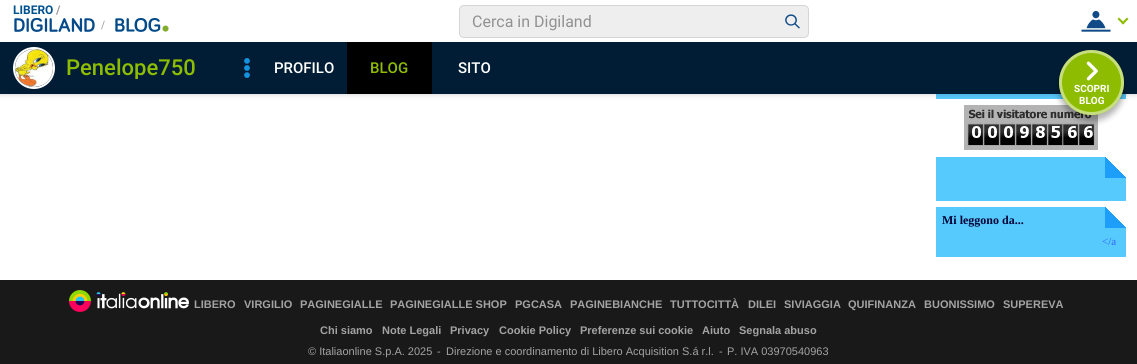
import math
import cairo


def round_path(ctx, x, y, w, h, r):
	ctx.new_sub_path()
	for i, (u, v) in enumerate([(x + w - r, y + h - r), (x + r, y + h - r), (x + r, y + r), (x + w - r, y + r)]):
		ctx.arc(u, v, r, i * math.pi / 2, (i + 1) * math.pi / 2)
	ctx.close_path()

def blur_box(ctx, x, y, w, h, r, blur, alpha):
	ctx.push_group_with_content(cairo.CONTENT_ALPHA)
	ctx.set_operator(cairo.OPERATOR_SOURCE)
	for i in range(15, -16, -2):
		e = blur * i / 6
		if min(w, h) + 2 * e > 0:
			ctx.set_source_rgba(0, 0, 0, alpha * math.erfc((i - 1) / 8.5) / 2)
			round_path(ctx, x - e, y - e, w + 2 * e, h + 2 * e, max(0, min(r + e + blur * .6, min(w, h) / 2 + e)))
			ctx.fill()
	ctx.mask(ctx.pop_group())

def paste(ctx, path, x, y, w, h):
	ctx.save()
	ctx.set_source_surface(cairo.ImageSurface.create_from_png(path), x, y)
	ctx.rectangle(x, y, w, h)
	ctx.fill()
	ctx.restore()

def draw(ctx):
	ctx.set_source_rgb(1, 1, 1)
	ctx.paint()
	ctx.set_source_rgb(0.337, 0.788, 0.992)
	ctx.rectangle(936, 94, 190, 5)
	ctx.fill()
	ctx.set_source_rgb(0, 0, 0)
	blur_box(ctx, 0, 0, 1137, 94, 0, 3, 0.2)
	ctx.set_source_rgb(1, 1, 1)
	ctx.rectangle(0, 0, 1137, 42)
	ctx.fill()
	ctx.select_font_face('Roboto', cairo.FONT_SLANT_NORMAL, cairo.FONT_WEIGHT_BOLD)
	ctx.set_font_size(12)
	ctx.set_source_rgb(0, 0.322, 0.561)
	ctx.move_to(13, 14)
	ctx.show_text('LIBERO')
	ctx.set_source_rgb(0.6, 0.6, 0.6)
	ctx.move_to(56, 14)
	ctx.show_text('/')
	ctx.set_source_rgb(0.933, 0.933, 0.933)
	round_path(ctx, 459.5, 5.5, 349, 32, 4.5)
	ctx.fill_preserve()
	ctx.set_source_rgb(0.835, 0.835, 0.835)
	ctx.set_line_width(1)
	ctx.stroke()
	ctx.select_font_face('Roboto')
	ctx.set_font_size(16)
	ctx.set_source_rgb(0.569, 0.569, 0.569)
	ctx.move_to(472, 27)
	ctx.show_text('Cerca in Digiland')
	paste(ctx, 'media/1.png', 785, 14, 15, 15)
	paste(ctx, 'media/2.png', 1081, 10, 30, 22)
	ctx.set_source_rgb(0.557, 0.737, 0)
	ctx.new_path()
	ctx.move_to(1127, 17.5)
	ctx.line_to(1128.5, 19)
	ctx.line_to(1123, 24.5)
	ctx.line_to(1121.5, 23)
	ctx.close_path()
	ctx.fill()
	ctx.new_path()
	ctx.move_to(1119, 17.5)
	ctx.line_to(1124.5, 23)
	ctx.line_to(1123, 24.5)
	ctx.line_to(1117.5, 19)
	ctx.close_path()
	ctx.fill()
	paste(ctx, 'media/3.png', 14, 18, 81, 14)
	paste(ctx, 'media/4.png', 101, 20, 4, 10)
	paste(ctx, 'media/5.png', 115, 18, 54, 14)
	ctx.set_source_rgb(0, 0.114, 0.208)
	ctx.rectangle(0, 42, 1137, 52)
	ctx.fill()
	ctx.arc(34, 68, 20, 0, 2 * math.pi)
	ctx.set_source_rgb(1, 1, 1)
	ctx.set_line_width(2)
	ctx.stroke()
	paste(ctx, 'media/6.png', 15, 49, 38, 38)
	ctx.save()
	ctx.rectangle(66, 57, 130, 22)
	ctx.clip()
	ctx.select_font_face('Roboto Medium')
	ctx.set_font_size(22)
	ctx.set_source_rgb(0.557, 0.737, 0)
	ctx.move_to(66, 75)
	ctx.show_text('Penelope750')
	ctx.restore()
	paste(ctx, 'media/7.png', 244, 58, 6, 20)
	ctx.select_font_face('Roboto Medium')
	ctx.set_font_size(15)
	ctx.move_to(274, 73)
	ctx.show_text('PROFILO')
	ctx.set_source_rgb(0, 0, 0)
	ctx.rectangle(347, 42, 85, 52)
	ctx.fill()
	ctx.set_source_rgb(0.557, 0.737, 0)
	ctx.move_to(370, 73)
	ctx.show_text('BLOG')
	ctx.set_source_rgb(1, 1, 1)
	ctx.move_to(458, 73)
	ctx.show_text('SITO')
	paste(ctx, 'media/9.png', 964, 105, 134, 45)
	ctx.set_source_rgb(0, 0, 0)
	blur_box(ctx, 1059, 56, 65, 65, 32.5, 3, 0.3)
	ctx.set_source_rgb(0.557, 0.737, 0)
	ctx.arc(1091.5, 82.5, 32.5, 0, 2 * math.pi)
	ctx.fill()
	ctx.arc(1091.5, 82.5, 31, 0, 2 * math.pi)
	ctx.set_source_rgba(1, 1, 1, 0.5)
	ctx.set_line_width(3)
	ctx.stroke()
	paste(ctx, 'media/8.png', 1086, 61, 12, 20)
	ctx.select_font_face('Roboto', cairo.FONT_SLANT_NORMAL, cairo.FONT_WEIGHT_BOLD)
	ctx.set_font_size(10)
	ctx.set_source_rgb(1, 1, 1)
	ctx.move_to(1074, 92)
	ctx.show_text('SCOPRI')
	ctx.move_to(1079, 104)
	ctx.show_text('BLOG')
	ctx.set_source_rgb(0.337, 0.788, 0.992)
	ctx.rectangle(936, 157, 190, 44)
	ctx.fill()
	paste(ctx, 'media/10.png', 1105, 157, 21, 21)
	ctx.rectangle(936, 207, 190, 50)
	ctx.fill()
	paste(ctx, 'media/10.png', 1105, 207, 21, 21)
	ctx.select_font_face('Liberation Serif', cairo.FONT_SLANT_NORMAL, cairo.FONT_WEIGHT_BOLD)
	ctx.set_font_size(12)
	ctx.set_source_rgb(0.004, 0.012, 0.212)
	ctx.move_to(942, 224)
	ctx.show_text('Mi leggono da...')
	ctx.select_font_face('Liberation Serif')
	ctx.set_font_size(11)
	ctx.set_source_rgb(0.2, 0.4, 1)
	ctx.move_to(1102, 245)
	ctx.show_text('</a')
	ctx.set_source_rgb(0.098, 0.098, 0.098)
	ctx.rectangle(0, 280, 1137, 84)
	ctx.fill()
	paste(ctx, 'media/11.png', 69, 290, 120, 22)
	ctx.select_font_face('Liberation Sans', cairo.FONT_SLANT_NORMAL, cairo.FONT_WEIGHT_BOLD)
	ctx.set_source_rgb(0.639, 0.639, 0.639)
	for x, y, s in [
		(194, 308, 'LIBERO'),
		(244, 308, 'VIRGILIO'),
		(300, 308, 'PAGINEGIALLE'),
		(390, 308, 'PAGINEGIALLE SHOP'),
		(515, 308, 'PGCASA'),
		(570, 308, 'PAGINEBIANCHE'),
		(670, 308, 'TUTTOCITTÀ'),
		(748, 308, 'DILEI'),
		(784, 308, 'SIVIAGGIA'),
		(848, 308, 'QUIFINANZA'),
		(924, 308, 'BUONISSIMO'),
		(1003, 308, 'SUPEREVA'),
		(320, 334, 'Chi siamo'),
		(382, 334, 'Note Legali'),
		(450, 334, 'Privacy'),
		(499, 334, 'Cookie Policy'),
		(580, 334, 'Preferenze sui cookie'),
		(702, 334, 'Aiuto'),
		(739, 334, 'Segnala abuso'),
	]:
		ctx.move_to(x, y)
		ctx.show_text(s)
	ctx.select_font_face('Liberation Sans')
	for x, y, s in [
		(308, 355, '© Italiaonline S.p.A. 2025'),
		(437, 355, '-'),
		(446, 355, 'Direzione e coordinamento di Libero Acquisition S.á r.l.'),
		(719, 355, '-'),
		(727, 355, 'P. IVA 03970540963'),
	]:
		ctx.move_to(x, y)
		ctx.show_text(s)


surface = cairo.ImageSurface(cairo.FORMAT_RGB24, 1137, 364)
ctx = cairo.Context(surface)
options = cairo.FontOptions()
options.set_hint_metrics(cairo.HINT_METRICS_OFF)
options.set_hint_style(cairo.HINT_STYLE_NONE)
ctx.set_font_options(options)
ctx.set_miter_limit(4)
draw(ctx)
surface.write_to_png('image.png')
